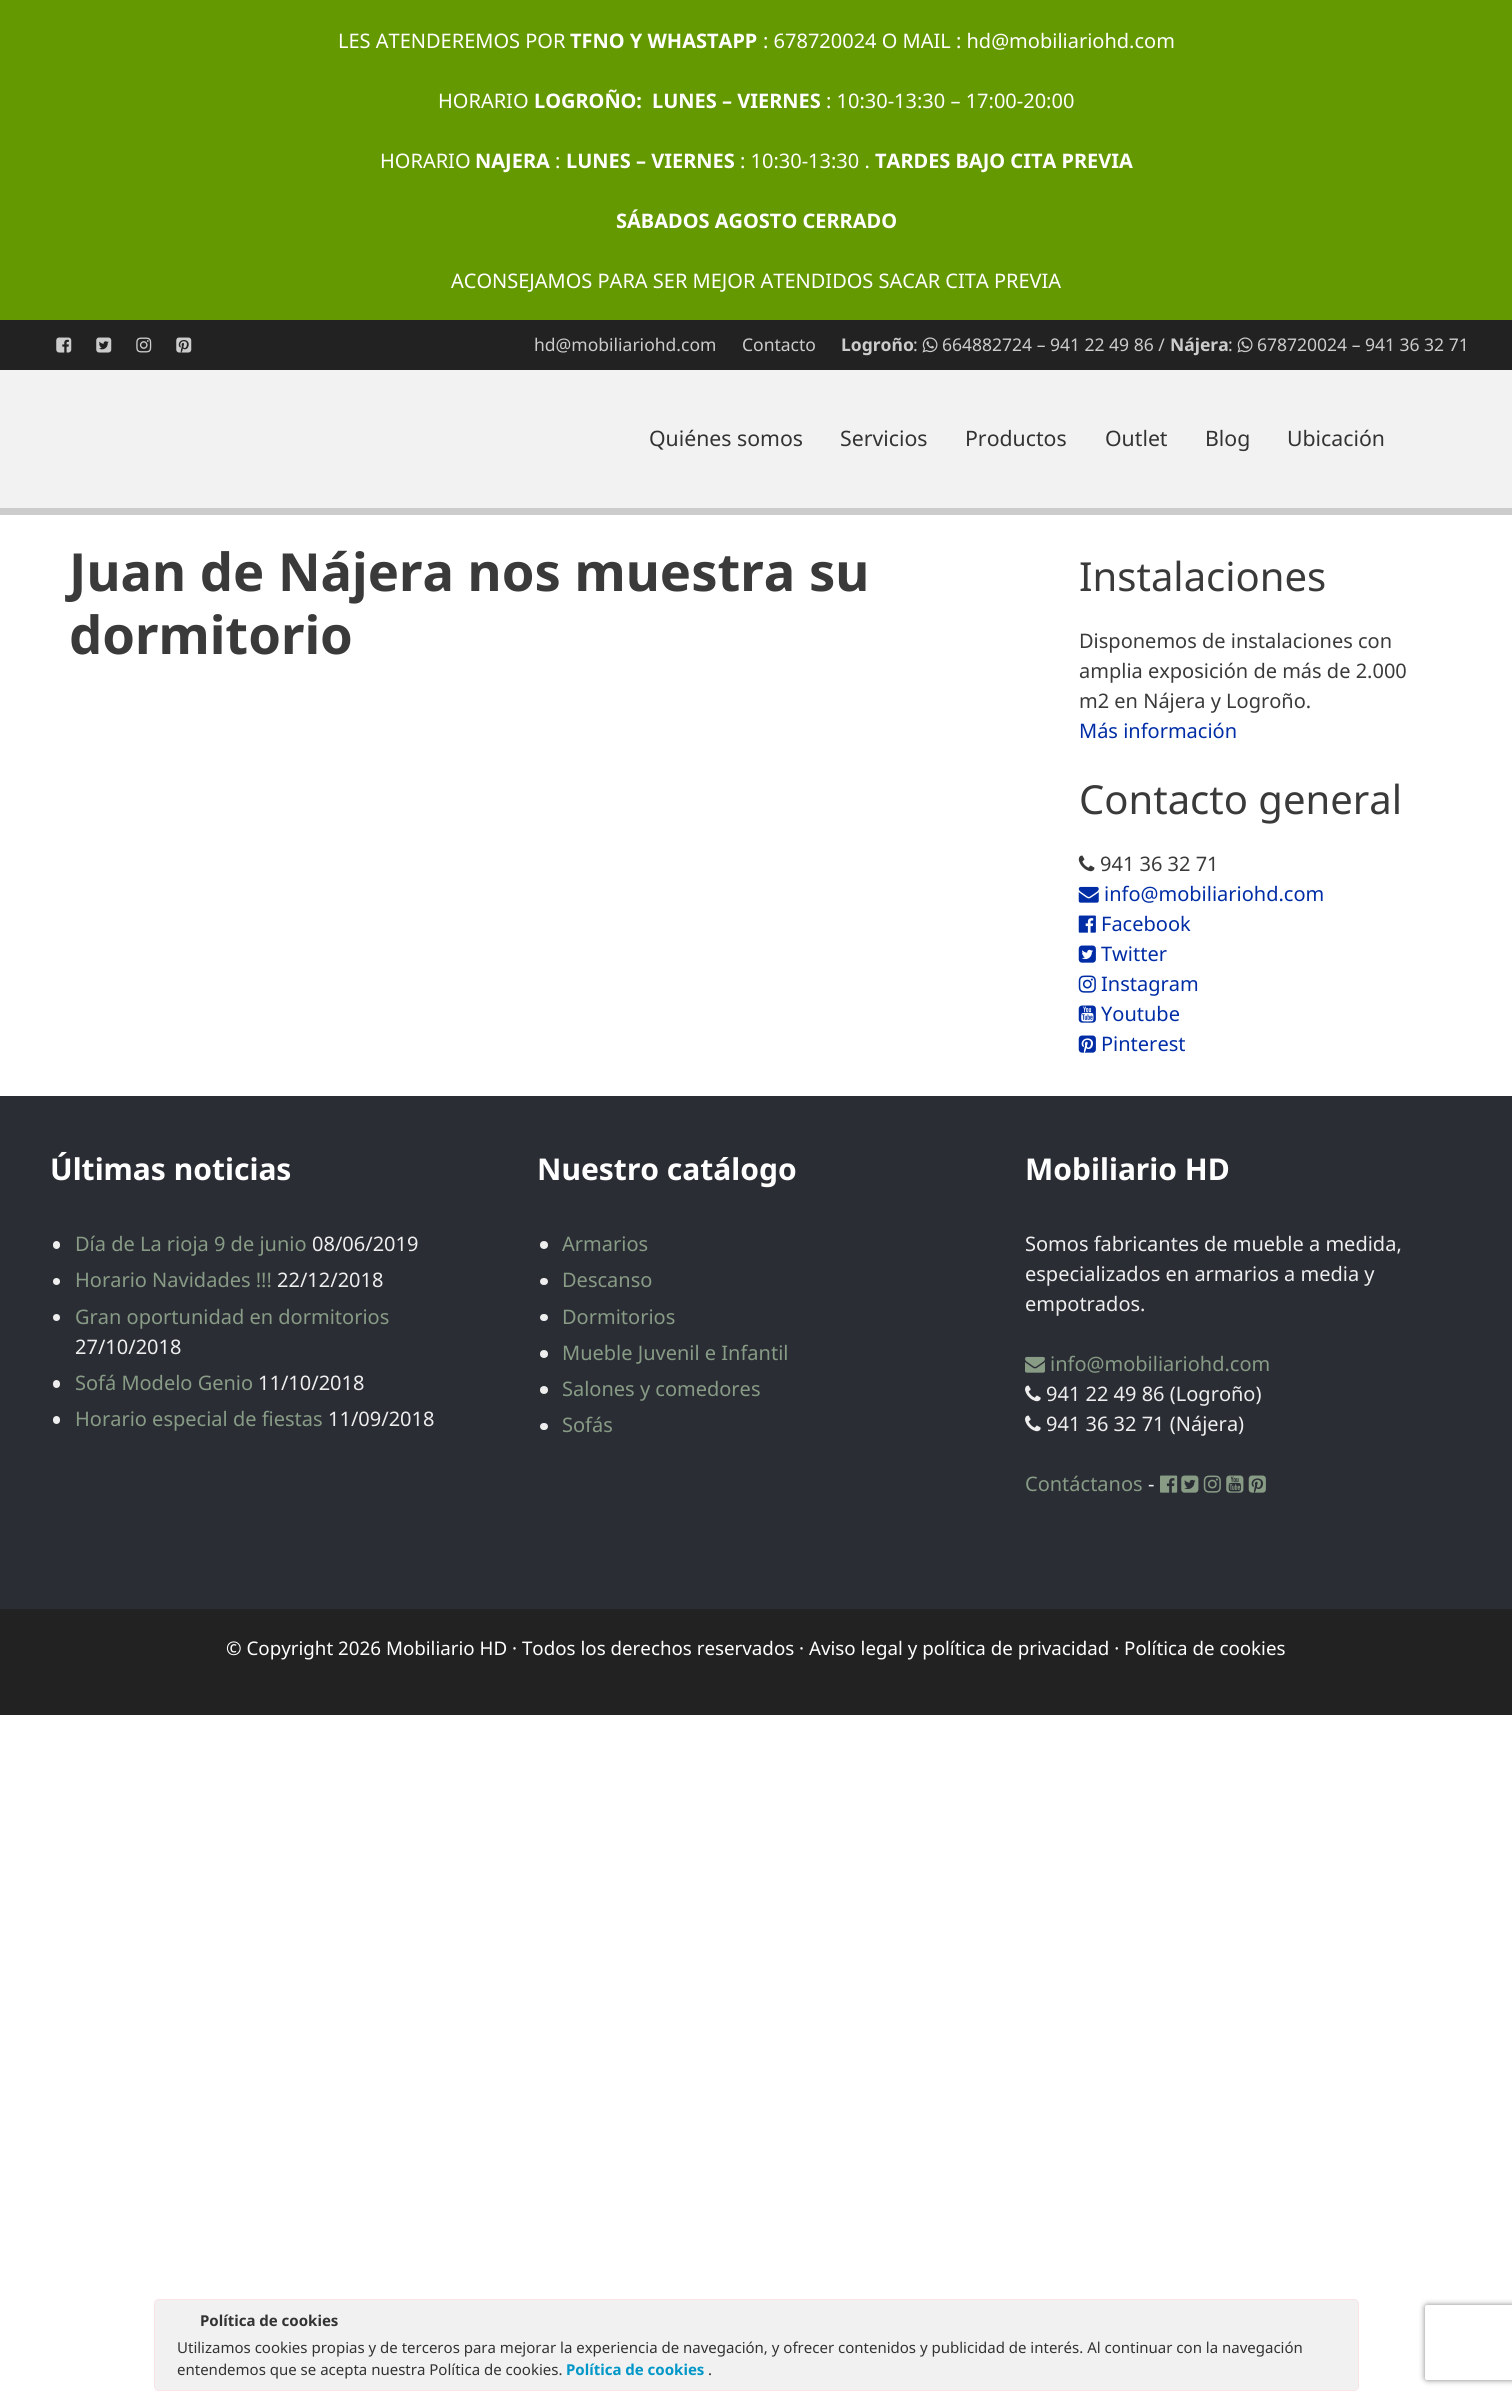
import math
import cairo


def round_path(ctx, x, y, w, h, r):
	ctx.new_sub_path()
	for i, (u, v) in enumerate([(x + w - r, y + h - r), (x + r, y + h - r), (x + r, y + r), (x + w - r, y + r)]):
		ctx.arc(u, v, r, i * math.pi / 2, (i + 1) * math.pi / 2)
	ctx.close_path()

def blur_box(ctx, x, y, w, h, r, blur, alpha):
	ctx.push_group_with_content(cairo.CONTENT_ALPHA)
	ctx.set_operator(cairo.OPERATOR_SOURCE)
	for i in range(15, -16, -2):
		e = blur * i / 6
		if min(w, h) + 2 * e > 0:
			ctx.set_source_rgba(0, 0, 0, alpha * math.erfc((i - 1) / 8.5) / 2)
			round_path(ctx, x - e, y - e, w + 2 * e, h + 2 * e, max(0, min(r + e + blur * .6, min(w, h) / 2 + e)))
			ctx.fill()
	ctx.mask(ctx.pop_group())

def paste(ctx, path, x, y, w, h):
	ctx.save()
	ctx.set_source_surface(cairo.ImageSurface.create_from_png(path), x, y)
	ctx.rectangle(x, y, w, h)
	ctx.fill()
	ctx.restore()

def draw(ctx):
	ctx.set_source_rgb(1, 1, 1)
	ctx.paint()
	ctx.set_source_rgb(0.392, 0.6, 0.004)
	ctx.rectangle(0, 0, 1512, 320)
	ctx.fill()
	ctx.select_font_face('Noto Sans')
	ctx.set_font_size(20)
	ctx.set_source_rgb(1, 1, 1)
	ctx.move_to(338, 48)
	ctx.show_text('LES ATENDEREMOS POR')
	ctx.select_font_face('Noto Sans', cairo.FONT_SLANT_NORMAL, cairo.FONT_WEIGHT_BOLD)
	ctx.move_to(570, 48)
	ctx.show_text('TFNO Y WHASTAPP')
	ctx.select_font_face('Noto Sans')
	ctx.move_to(763, 48)
	ctx.show_text(': 678720024 O MAIL : hd@mobiliariohd.com')
	ctx.move_to(438, 108)
	ctx.show_text('HORARIO')
	ctx.select_font_face('Noto Sans', cairo.FONT_SLANT_NORMAL, cairo.FONT_WEIGHT_BOLD)
	ctx.move_to(534, 108)
	ctx.show_text('LOGROÑO:')
	ctx.move_to(652, 108)
	ctx.show_text('LUNES – VIERNES')
	ctx.select_font_face('Noto Sans')
	ctx.move_to(826, 108)
	ctx.show_text(': 10:30-13:30 – 17:00-20:00')
	ctx.move_to(380, 168)
	ctx.show_text('HORARIO')
	ctx.select_font_face('Noto Sans', cairo.FONT_SLANT_NORMAL, cairo.FONT_WEIGHT_BOLD)
	ctx.move_to(475, 168)
	ctx.show_text('NAJERA')
	ctx.select_font_face('Noto Sans')
	ctx.move_to(555, 168)
	ctx.show_text(':')
	ctx.select_font_face('Noto Sans', cairo.FONT_SLANT_NORMAL, cairo.FONT_WEIGHT_BOLD)
	ctx.move_to(566, 168)
	ctx.show_text('LUNES – VIERNES')
	ctx.select_font_face('Noto Sans')
	ctx.move_to(740, 168)
	ctx.show_text(': 10:30-13:30 .')
	ctx.select_font_face('Noto Sans', cairo.FONT_SLANT_NORMAL, cairo.FONT_WEIGHT_BOLD)
	ctx.move_to(875, 168)
	ctx.show_text('TARDES BAJO CITA PREVIA')
	ctx.move_to(616, 228)
	ctx.show_text('SÁBADOS AGOSTO CERRADO')
	ctx.select_font_face('Noto Sans')
	ctx.move_to(451, 288)
	ctx.show_text('ACONSEJAMOS PARA SER MEJOR ATENDIDOS SACAR CITA PREVIA')
	ctx.set_source_rgb(0.133, 0.133, 0.133)
	ctx.rectangle(0, 320, 1512, 50)
	ctx.fill()
	paste(ctx, 'media/1.png', 56, 337, 16, 16)
	paste(ctx, 'media/2.png', 96, 337, 16, 16)
	paste(ctx, 'media/3.png', 136, 337, 16, 16)
	paste(ctx, 'media/4.png', 176, 337, 16, 16)
	ctx.set_font_size(17.5)
	ctx.set_source_rgb(0.8, 0.8, 0.8)
	ctx.move_to(534, 351)
	ctx.show_text('hd@mobiliariohd.com')
	ctx.move_to(742, 351)
	ctx.show_text('Contacto')
	ctx.select_font_face('Noto Sans', cairo.FONT_SLANT_NORMAL, cairo.FONT_WEIGHT_BOLD)
	ctx.move_to(841, 351)
	ctx.show_text('Logroño')
	ctx.select_font_face('Noto Sans')
	ctx.move_to(913, 351)
	ctx.show_text(':')
	paste(ctx, 'media/5.png', 922, 337, 16, 16)
	ctx.move_to(942, 351)
	ctx.show_text('664882724 – 941 22 49 86 /')
	ctx.select_font_face('Noto Sans', cairo.FONT_SLANT_NORMAL, cairo.FONT_WEIGHT_BOLD)
	ctx.move_to(1170, 351)
	ctx.show_text('Nájera')
	ctx.select_font_face('Noto Sans')
	ctx.move_to(1228, 351)
	ctx.show_text(':')
	paste(ctx, 'media/5.png', 1237, 337, 16, 16)
	ctx.move_to(1257, 351)
	ctx.show_text('678720024 – 941 36 32 71')
	ctx.set_source_rgb(0.949, 0.949, 0.949)
	ctx.rectangle(0, 370, 1512, 138)
	ctx.fill()
	ctx.set_source_rgb(0.8, 0.8, 0.8)
	ctx.rectangle(0, 508, 1512, 7)
	ctx.fill()
	ctx.set_font_size(21.25)
	ctx.set_source_rgb(0.2, 0.2, 0.2)
	for x, y, s in [
		(649, 446, 'Quiénes somos'),
		(840, 446, 'Servicios'),
		(965, 446, 'Productos'),
		(1105, 446, 'Outlet'),
		(1205, 446, 'Blog'),
		(1287, 446, 'Ubicación'),
	]:
		ctx.move_to(x, y)
		ctx.show_text(s)
	ctx.select_font_face('Noto Sans', cairo.FONT_SLANT_NORMAL, cairo.FONT_WEIGHT_BOLD)
	ctx.set_font_size(52.5)
	ctx.set_source_rgb(0.227, 0.227, 0.227)
	ctx.move_to(69, 591)
	ctx.show_text('Juan de Nájera nos muestra su')
	ctx.move_to(69, 654)
	ctx.show_text('dormitorio')
	ctx.select_font_face('Noto Sans')
	ctx.set_font_size(40)
	ctx.move_to(1079, 591)
	ctx.show_text('Instalaciones')
	ctx.set_font_size(20)
	for x, y, s in [
		(1079, 648, 'Disponemos de instalaciones con'),
		(1079, 678, 'amplia exposición de más de 2.000'),
		(1079, 708, 'm2 en Nájera y Logroño.'),
	]:
		ctx.move_to(x, y)
		ctx.show_text(s)
	ctx.set_source_rgb(0, 0.176, 0.651)
	ctx.move_to(1079, 738)
	ctx.show_text('Más información')
	ctx.set_font_size(40)
	ctx.set_source_rgb(0.227, 0.227, 0.227)
	ctx.move_to(1079, 814)
	ctx.show_text('Contacto general')
	paste(ctx, 'media/6.png', 1078, 855, 17, 17)
	ctx.set_font_size(20)
	ctx.move_to(1100, 871)
	ctx.show_text('941 36 32 71')
	paste(ctx, 'media/7.png', 1078, 886, 21, 17)
	ctx.set_source_rgb(0, 0.176, 0.651)
	ctx.move_to(1104, 901)
	ctx.show_text('info@mobiliariohd.com')
	paste(ctx, 'media/8.png', 1078, 915, 18, 18)
	ctx.move_to(1101, 931)
	ctx.show_text('Facebook')
	paste(ctx, 'media/9.png', 1078, 945, 18, 18)
	ctx.move_to(1101, 961)
	ctx.show_text('Twitter')
	paste(ctx, 'media/10.png', 1078, 975, 18, 18)
	ctx.move_to(1101, 991)
	ctx.show_text('Instagram')
	paste(ctx, 'media/11.png', 1078, 1005, 18, 18)
	ctx.move_to(1101, 1021)
	ctx.show_text('Youtube')
	paste(ctx, 'media/12.png', 1078, 1035, 18, 18)
	ctx.move_to(1101, 1051)
	ctx.show_text('Pinterest')
	ctx.set_source_rgb(0.169, 0.176, 0.208)
	ctx.rectangle(0, 1096, 1512, 513)
	ctx.fill()
	ctx.select_font_face('Noto Sans', cairo.FONT_SLANT_NORMAL, cairo.FONT_WEIGHT_BOLD)
	ctx.set_font_size(30)
	ctx.set_source_rgb(1, 1, 1)
	ctx.move_to(50, 1180)
	ctx.show_text('Últimas noticias')
	ctx.set_source_rgb(0.933, 0.933, 0.933)
	round_path(ctx, 53, 1241, 7, 8, 3.5)
	ctx.fill()
	ctx.select_font_face('Noto Sans')
	ctx.set_font_size(20)
	ctx.set_source_rgb(0.529, 0.608, 0.522)
	ctx.move_to(75, 1251)
	ctx.show_text('Día de La rioja 9 de junio')
	ctx.set_source_rgb(0.933, 0.933, 0.933)
	ctx.move_to(312, 1251)
	ctx.show_text('08/06/2019')
	ctx.new_path()
	ctx.arc(56.5, 1281.5, 3.5, 0, 2 * math.pi)
	ctx.fill()
	ctx.set_source_rgb(0.529, 0.608, 0.522)
	ctx.move_to(75, 1287)
	ctx.show_text('Horario Navidades !!!')
	ctx.set_source_rgb(0.933, 0.933, 0.933)
	ctx.move_to(277, 1287)
	ctx.show_text('22/12/2018')
	ctx.new_path()
	ctx.arc(56.5, 1317.5, 3.5, 0, 2 * math.pi)
	ctx.fill()
	ctx.set_source_rgb(0.529, 0.608, 0.522)
	ctx.move_to(75, 1324)
	ctx.show_text('Gran oportunidad en dormitorios')
	ctx.set_source_rgb(0.933, 0.933, 0.933)
	ctx.move_to(75, 1354)
	ctx.show_text('27/10/2018')
	round_path(ctx, 53, 1380, 7, 8, 3.5)
	ctx.fill()
	ctx.set_source_rgb(0.529, 0.608, 0.522)
	ctx.move_to(75, 1390)
	ctx.show_text('Sofá Modelo Genio')
	ctx.set_source_rgb(0.933, 0.933, 0.933)
	ctx.move_to(258, 1390)
	ctx.show_text('11/10/2018')
	round_path(ctx, 53, 1416, 7, 8, 3.5)
	ctx.fill()
	ctx.set_source_rgb(0.529, 0.608, 0.522)
	ctx.move_to(75, 1426)
	ctx.show_text('Horario especial de fiestas')
	ctx.set_source_rgb(0.933, 0.933, 0.933)
	ctx.move_to(328, 1426)
	ctx.show_text('11/09/2018')
	ctx.select_font_face('Noto Sans', cairo.FONT_SLANT_NORMAL, cairo.FONT_WEIGHT_BOLD)
	ctx.set_font_size(30)
	ctx.set_source_rgb(1, 1, 1)
	ctx.move_to(537, 1180)
	ctx.show_text('Nuestro catálogo')
	ctx.set_source_rgb(0.933, 0.933, 0.933)
	ctx.new_path()
	ctx.arc(544, 1245, 4, 0, 2 * math.pi)
	ctx.fill()
	ctx.select_font_face('Noto Sans')
	ctx.set_font_size(20)
	ctx.set_source_rgb(0.529, 0.608, 0.522)
	ctx.move_to(562, 1251)
	ctx.show_text('Armarios')
	ctx.set_source_rgb(0.933, 0.933, 0.933)
	round_path(ctx, 540, 1278, 8, 7, 3.5)
	ctx.fill()
	ctx.set_source_rgb(0.529, 0.608, 0.522)
	ctx.move_to(562, 1287)
	ctx.show_text('Descanso')
	ctx.set_source_rgb(0.933, 0.933, 0.933)
	round_path(ctx, 540, 1314, 8, 7, 3.5)
	ctx.fill()
	ctx.set_source_rgb(0.529, 0.608, 0.522)
	ctx.move_to(562, 1324)
	ctx.show_text('Dormitorios')
	ctx.set_source_rgb(0.933, 0.933, 0.933)
	ctx.new_path()
	ctx.arc(544, 1354, 4, 0, 2 * math.pi)
	ctx.fill()
	ctx.set_source_rgb(0.529, 0.608, 0.522)
	ctx.move_to(562, 1360)
	ctx.show_text('Mueble Juvenil e Infantil')
	ctx.set_source_rgb(0.933, 0.933, 0.933)
	ctx.new_path()
	ctx.arc(544, 1390, 4, 0, 2 * math.pi)
	ctx.fill()
	ctx.set_source_rgb(0.529, 0.608, 0.522)
	ctx.move_to(562, 1396)
	ctx.show_text('Salones y comedores')
	ctx.set_source_rgb(0.933, 0.933, 0.933)
	round_path(ctx, 540, 1423, 8, 7, 3.5)
	ctx.fill()
	ctx.set_source_rgb(0.529, 0.608, 0.522)
	ctx.move_to(562, 1432)
	ctx.show_text('Sofás')
	ctx.select_font_face('Noto Sans', cairo.FONT_SLANT_NORMAL, cairo.FONT_WEIGHT_BOLD)
	ctx.set_font_size(30)
	ctx.set_source_rgb(1, 1, 1)
	ctx.move_to(1025, 1180)
	ctx.show_text('Mobiliario HD')
	ctx.select_font_face('Noto Sans')
	ctx.set_font_size(20)
	ctx.set_source_rgb(0.933, 0.933, 0.933)
	for x, y, s in [
		(1025, 1251, 'Somos fabricantes de mueble a medida,'),
		(1025, 1281, 'especializados en armarios a media y'),
		(1025, 1311, 'empotrados.'),
	]:
		ctx.move_to(x, y)
		ctx.show_text(s)
	paste(ctx, 'media/13.png', 1025, 1356, 20, 17)
	ctx.set_source_rgb(0.529, 0.608, 0.522)
	ctx.move_to(1050, 1371)
	ctx.show_text('info@mobiliariohd.com')
	paste(ctx, 'media/14.png', 1025, 1385, 16, 17)
	ctx.set_source_rgb(0.933, 0.933, 0.933)
	ctx.move_to(1046, 1401)
	ctx.show_text('941 22 49 86 (Logroño)')
	paste(ctx, 'media/14.png', 1025, 1415, 16, 17)
	ctx.move_to(1046, 1431)
	ctx.show_text('941 36 32 71 (Nájera)')
	ctx.set_source_rgb(0.529, 0.608, 0.522)
	ctx.move_to(1025, 1491)
	ctx.show_text('Contáctanos')
	ctx.set_source_rgb(0.933, 0.933, 0.933)
	ctx.move_to(1148, 1491)
	ctx.show_text('-')
	paste(ctx, 'media/15.png', 1160, 1475, 18, 18)
	paste(ctx, 'media/16.png', 1181, 1475, 18, 18)
	paste(ctx, 'media/17.png', 1203, 1475, 18, 18)
	paste(ctx, 'media/18.png', 1226, 1475, 18, 18)
	paste(ctx, 'media/19.png', 1248, 1475, 18, 18)
	ctx.set_source_rgb(0.133, 0.133, 0.133)
	ctx.rectangle(0, 1609, 1512, 106)
	ctx.fill()
	ctx.set_font_size(18.75)
	ctx.set_source_rgb(1, 1, 1)
	ctx.move_to(226, 1655)
	ctx.show_text('© Copyright 2026 Mobiliario HD · Todos los derechos reservados · Aviso legal y política de privacidad · Política de cookies')
	ctx.set_source_rgb(0.945, 0.945, 0.945)
	round_path(ctx, 154.5, 2299.5, 1204, 91, 4.5)
	ctx.fill_preserve()
	ctx.set_source_rgb(0.98, 0.89, 0.898)
	ctx.set_line_width(1)
	ctx.stroke()
	ctx.select_font_face('Noto Sans', cairo.FONT_SLANT_NORMAL, cairo.FONT_WEIGHT_BOLD)
	ctx.set_font_size(15)
	ctx.set_source_rgb(0.2, 0.2, 0.2)
	ctx.move_to(200, 2326)
	ctx.show_text('Política de cookies')
	ctx.select_font_face('Noto Sans')
	ctx.move_to(177, 2353)
	ctx.show_text('Utilizamos cookies propias y de terceros para mejorar la experiencia de navegación, y ofrecer contenidos y publicidad de interés. Al continuar con la navegación')
	ctx.move_to(177, 2375)
	ctx.show_text('entendemos que se acepta nuestra Política de cookies.')
	ctx.select_font_face('Noto Sans', cairo.FONT_SLANT_NORMAL, cairo.FONT_WEIGHT_BOLD)
	ctx.set_source_rgb(0, 0.592, 0.784)
	ctx.move_to(566, 2375)
	ctx.show_text('Política de cookies')
	ctx.select_font_face('Noto Sans')
	ctx.set_source_rgb(0.2, 0.2, 0.2)
	ctx.move_to(708, 2375)
	ctx.show_text('.')
	ctx.save()
	ctx.set_fill_rule(cairo.FILL_RULE_EVEN_ODD)
	ctx.new_path()
	ctx.move_to(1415, 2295)
	ctx.line_to(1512, 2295)
	ctx.line_to(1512, 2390)
	ctx.line_to(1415, 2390)
	ctx.close_path()
	ctx.move_to(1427.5, 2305)
	ctx.line_to(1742.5, 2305)
	ctx.curve_to(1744, 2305, 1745, 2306, 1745, 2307.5)
	ctx.line_to(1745, 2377.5)
	ctx.curve_to(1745, 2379, 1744, 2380, 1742.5, 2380)
	ctx.line_to(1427.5, 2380)
	ctx.curve_to(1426, 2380, 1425, 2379, 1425, 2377.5)
	ctx.line_to(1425, 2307.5)
	ctx.curve_to(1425, 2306, 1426, 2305, 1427.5, 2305)
	ctx.close_path()
	ctx.clip()
	ctx.set_source_rgb(0.502, 0.502, 0.502)
	blur_box(ctx, 1425, 2305, 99, 75, 2.5, 3, 1)
	ctx.restore()


surface = cairo.ImageSurface(cairo.FORMAT_RGB24, 1512, 2397)
ctx = cairo.Context(surface)
options = cairo.FontOptions()
options.set_hint_metrics(cairo.HINT_METRICS_OFF)
options.set_hint_style(cairo.HINT_STYLE_NONE)
ctx.set_font_options(options)
ctx.set_miter_limit(4)
draw(ctx)
surface.write_to_png('image.png')
